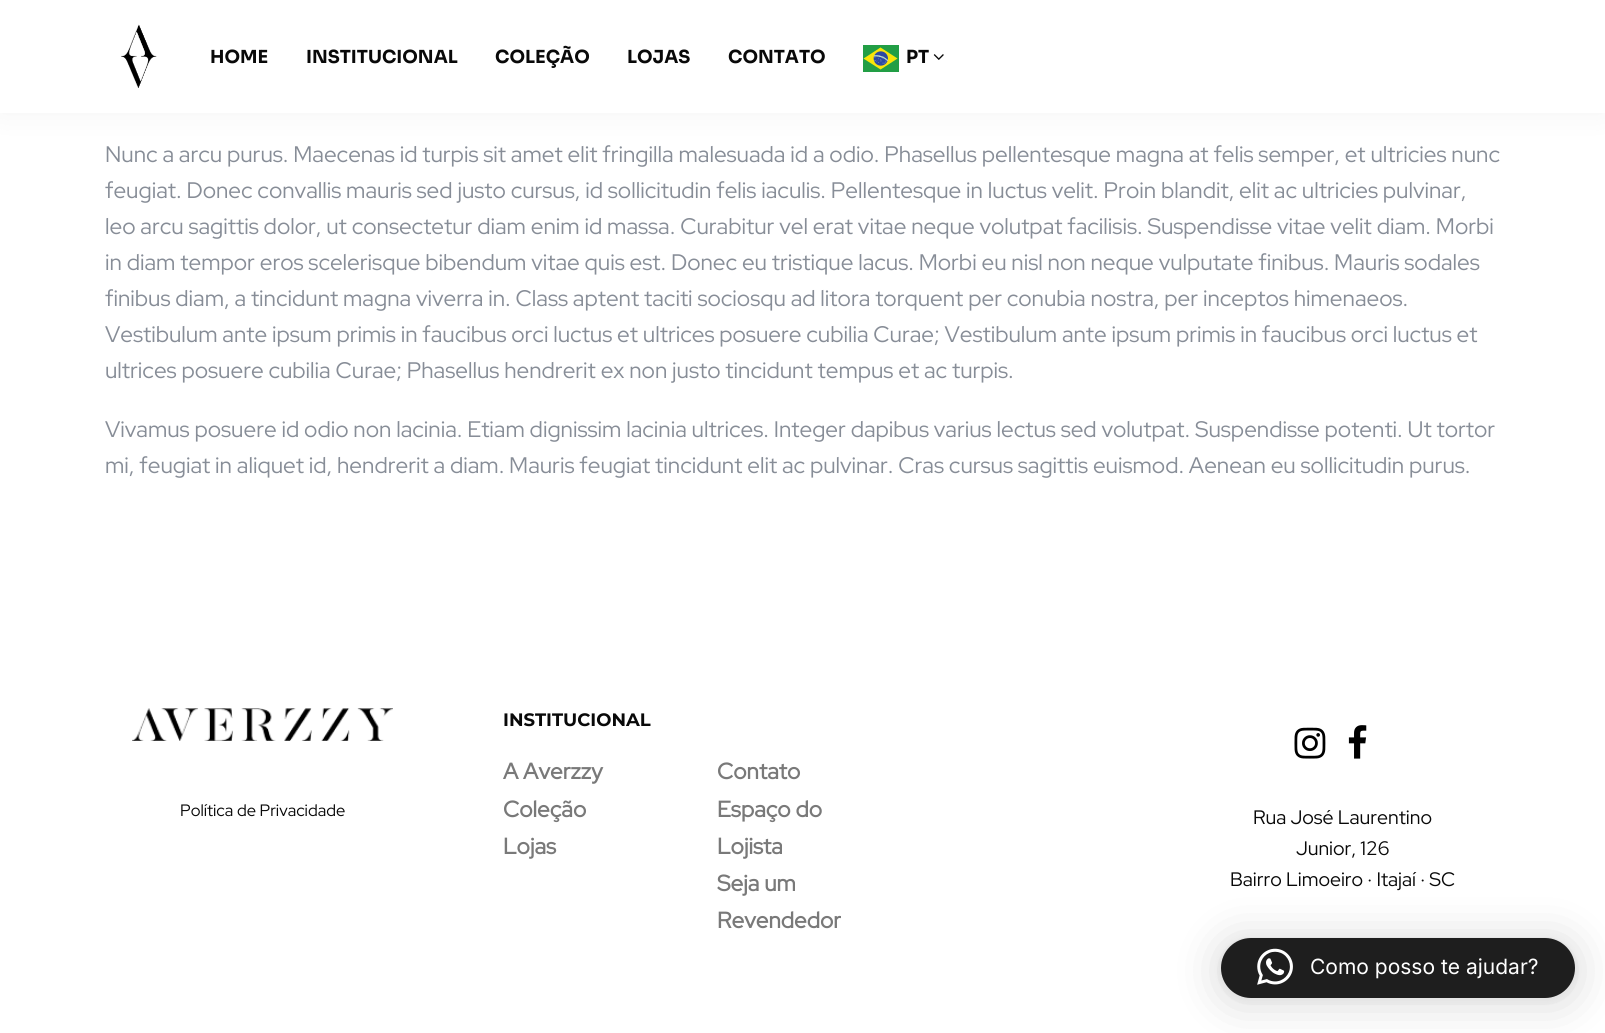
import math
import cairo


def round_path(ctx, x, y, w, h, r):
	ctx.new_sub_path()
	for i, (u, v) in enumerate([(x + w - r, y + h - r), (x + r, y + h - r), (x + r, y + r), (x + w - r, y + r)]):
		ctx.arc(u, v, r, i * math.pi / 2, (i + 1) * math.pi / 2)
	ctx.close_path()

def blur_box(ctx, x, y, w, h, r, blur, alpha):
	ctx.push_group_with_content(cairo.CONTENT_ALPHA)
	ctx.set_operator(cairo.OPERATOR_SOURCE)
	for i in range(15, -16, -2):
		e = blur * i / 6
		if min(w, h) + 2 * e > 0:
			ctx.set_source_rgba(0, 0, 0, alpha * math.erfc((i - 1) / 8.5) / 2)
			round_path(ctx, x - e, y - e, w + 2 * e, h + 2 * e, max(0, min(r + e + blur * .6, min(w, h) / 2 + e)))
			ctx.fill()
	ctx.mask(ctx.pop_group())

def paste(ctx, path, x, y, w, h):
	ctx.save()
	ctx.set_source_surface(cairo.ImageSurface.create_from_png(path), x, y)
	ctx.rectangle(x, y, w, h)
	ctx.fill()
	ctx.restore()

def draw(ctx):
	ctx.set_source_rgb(1, 1, 1)
	ctx.paint()
	ctx.set_source_rgb(0, 0, 0)
	blur_box(ctx, 0, 0, 1605, 113, 0, 15, 0.05)
	ctx.set_source_rgb(1, 1, 1)
	ctx.rectangle(0, 0, 1605, 113)
	ctx.fill()
	paste(ctx, 'media/1.png', 121, 24, 36, 64)
	ctx.select_font_face('Sora', cairo.FONT_SLANT_NORMAL, cairo.FONT_WEIGHT_BOLD)
	ctx.set_font_size(18)
	ctx.set_source_rgb(0.039, 0.039, 0.039)
	for x, y, s in [
		(210, 63, 'HOME'),
		(306, 63, 'INSTITUCIONAL'),
		(495, 63, 'COLEÇÃO'),
		(627, 63, 'LOJAS'),
		(728, 63, 'CONTATO'),
	]:
		ctx.move_to(x, y)
		ctx.show_text(s)
	paste(ctx, 'media/2.png', 863, 45, 36, 27)
	ctx.move_to(906, 63)
	ctx.show_text('PT')
	paste(ctx, 'media/3.png', 933, 54, 11, 6)
	ctx.select_font_face('Red Hat Display')
	ctx.set_font_size(22.5)
	ctx.set_source_rgb(0.529, 0.553, 0.592)
	for x, y, s in [
		(105, 162, 'Nunc a arcu purus. Maecenas id turpis sit amet elit fringilla malesuada id a odio. Phasellus pellentesque magna at felis semper, et ultricies nunc'),
		(105, 198, 'feugiat. Donec convallis mauris sed justo cursus, id sollicitudin felis iaculis. Pellentesque in luctus velit. Proin blandit, elit ac ultricies pulvinar,'),
		(105, 234, 'leo arcu sagittis dolor, ut consectetur diam enim id massa. Curabitur vel erat vitae neque volutpat facilisis. Suspendisse vitae velit diam. Morbi'),
		(105, 270, 'in diam tempor eros scelerisque bibendum vitae quis est. Donec eu tristique lacus. Morbi eu nisl non neque vulputate finibus. Mauris sodales'),
		(105, 306, 'finibus diam, a tincidunt magna viverra in. Class aptent taciti sociosqu ad litora torquent per conubia nostra, per inceptos himenaeos.'),
		(105, 342, 'Vestibulum ante ipsum primis in faucibus orci luctus et ultrices posuere cubilia Curae; Vestibulum ante ipsum primis in faucibus orci luctus et'),
		(105, 378, 'ultrices posuere cubilia Curae; Phasellus hendrerit ex non justo tincidunt tempus et ac turpis.'),
		(105, 437, 'Vivamus posuere id odio non lacinia. Etiam dignissim lacinia ultrices. Integer dapibus varius lectus sed volutpat. Suspendisse potenti. Ut tortor'),
		(105, 473, 'mi, feugiat in aliquet id, hendrerit a diam. Mauris feugiat tincidunt elit ac pulvinar. Cras cursus sagittis euismod. Aenean eu sollicitudin purus.'),
	]:
		ctx.move_to(x, y)
		ctx.show_text(s)
	paste(ctx, 'media/4.png', 132, 708, 261, 33)
	ctx.set_font_size(16.5)
	ctx.set_source_rgb(0.039, 0.039, 0.039)
	ctx.move_to(180, 816)
	ctx.show_text('Política de Privacidade')
	ctx.select_font_face('Montserrat', cairo.FONT_SLANT_NORMAL, cairo.FONT_WEIGHT_BOLD)
	ctx.set_font_size(18)
	ctx.move_to(503, 726)
	ctx.show_text('INSTITUCIONAL')
	ctx.select_font_face('Red Hat Display', cairo.FONT_SLANT_NORMAL, cairo.FONT_WEIGHT_BOLD)
	ctx.set_font_size(22.5)
	ctx.set_source_rgb(0.475, 0.475, 0.475)
	for x, y, s in [
		(503, 779, 'A Averzzy'),
		(503, 817, 'Coleção'),
		(503, 854, 'Lojas'),
		(717, 779, 'Contato'),
		(717, 817, 'Espaço do'),
		(717, 854, 'Lojista'),
		(717, 891, 'Seja um'),
		(717, 928, 'Revendedor'),
	]:
		ctx.move_to(x, y)
		ctx.show_text(s)
	paste(ctx, 'media/5.png', 1294, 727, 32, 32)
	paste(ctx, 'media/6.png', 1348, 725, 19, 34)
	ctx.select_font_face('Red Hat Display')
	ctx.set_font_size(19.5)
	ctx.set_source_rgb(0.039, 0.039, 0.039)
	for x, y, s in [
		(1253, 824, 'Rua José Laurentino'),
		(1296, 855, 'Junior, 126'),
		(1230, 886, 'Bairro Limoeiro · Itajaí · SC'),
	]:
		ctx.move_to(x, y)
		ctx.show_text(s)
	ctx.set_source_rgb(0, 0, 0)
	blur_box(ctx, 1221, 941, 354, 60, 30, 24, 0.16)
	blur_box(ctx, 1221, 939, 354, 60, 30, 4.5, 0.06)
	ctx.set_source_rgb(0.118, 0.118, 0.118)
	round_path(ctx, 1221, 938, 354, 60, 30)
	ctx.fill()
	paste(ctx, 'media/7.png', 1257, 948, 36, 37)
	ctx.select_font_face('Inter')
	ctx.set_font_size(21)
	ctx.set_source_rgb(1, 1, 1)
	ctx.move_to(1310, 974)
	ctx.show_text('Como posso te ajudar?')


surface = cairo.ImageSurface(cairo.FORMAT_RGB24, 1605, 1033)
ctx = cairo.Context(surface)
options = cairo.FontOptions()
options.set_hint_metrics(cairo.HINT_METRICS_OFF)
options.set_hint_style(cairo.HINT_STYLE_NONE)
ctx.set_font_options(options)
ctx.set_miter_limit(4)
draw(ctx)
surface.write_to_png('image.png')
